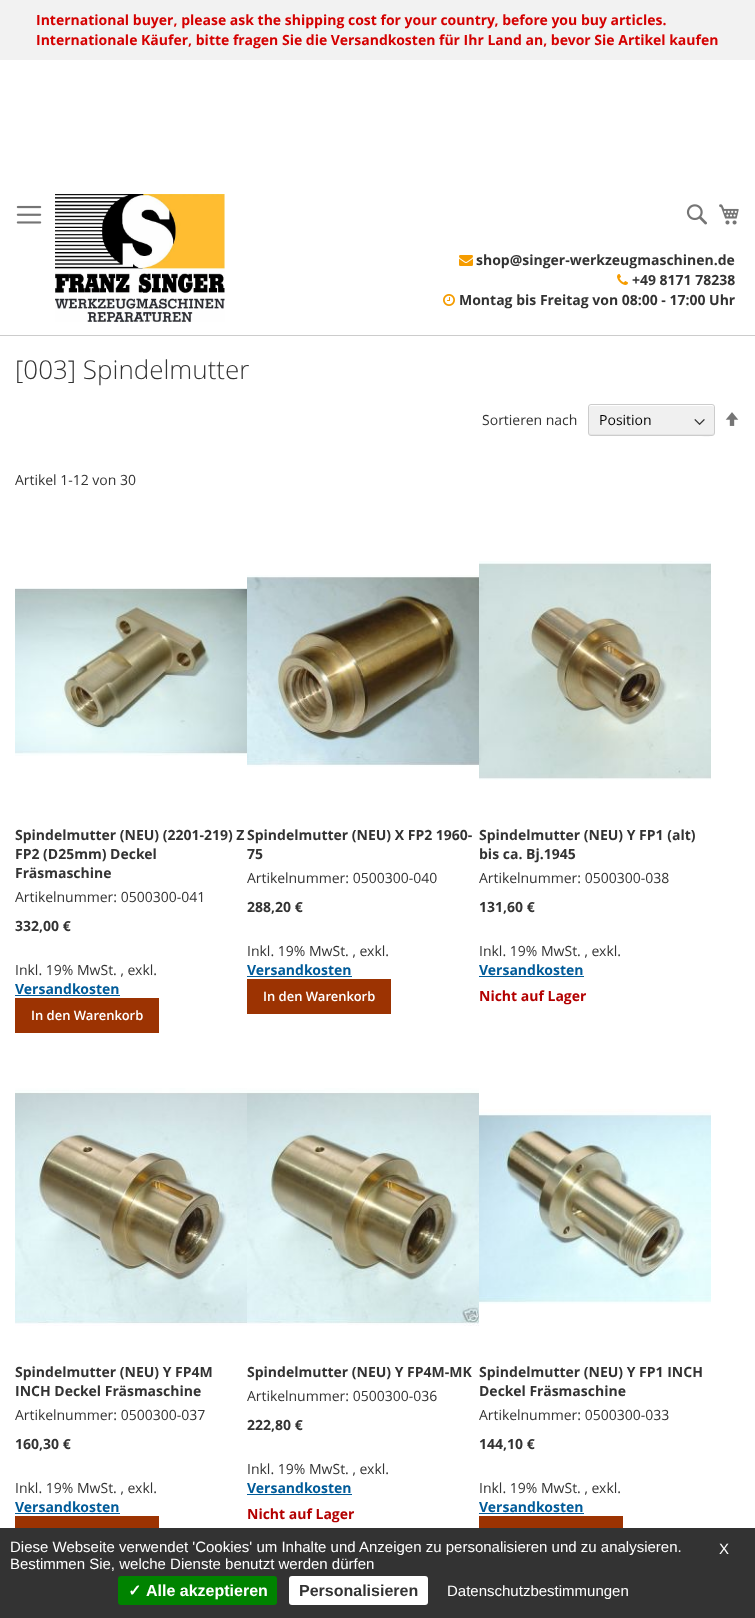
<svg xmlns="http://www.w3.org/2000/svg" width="755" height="1618">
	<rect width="100%" height="100%" fill="#FFFFFF" />
	<rect x="0" y="0" width="755" height="60" fill="#F2F2F2" />
	<g font-family="Open Sans" font-size="14" font-weight="700" fill="#D40101">
		<text x="36" y="25">International buyer, please ask the shipping cost for your country, before you buy articles.</text>
		<text x="36" y="45">Internationale Käufer, bitte fragen Sie die Versandkosten für Ihr Land an, bevor Sie Artikel kaufen</text>
	</g>
	<rect x="0" y="335" width="755" height="1" fill="#CCCCCC" />
	<image x="16" y="205" width="26" height="19" href="assets/img1.png" />
	<image x="55" y="194" width="170" height="128" href="assets/img2.png" />
	<image x="686" y="204" width="21" height="21" href="assets/img3.png" />
	<image x="719" y="204" width="20" height="21" href="assets/img4.png" />
	<image x="459" y="255" width="14" height="11" href="assets/img5.png" />
	<text x="476" y="265" font-family="Open Sans" font-size="14" font-weight="700" fill="#333333">shop@singer-werkzeugmaschinen.de</text>
	<image x="617" y="274" width="11" height="11" href="assets/img6.png" />
	<text x="632" y="285" font-family="Open Sans" font-size="14" font-weight="700" fill="#333333">+49 8171 78238</text>
	<image x="443" y="294" width="12" height="12" href="assets/img7.png" />
	<text x="459" y="305" font-family="Open Sans" font-size="14" font-weight="700" fill="#333333">Montag bis Freitag von 08:00 - 17:00 Uhr</text>
	<text x="15" y="379" font-family="Open Sans" font-size="26" font-weight="300" fill="#333333">[003] Spindelmutter</text>
	<text x="482" y="425" font-family="Open Sans" font-size="14" fill="#333333">Sortieren nach</text>
	<rect x="589" y="405" width="125" height="30" rx="2" fill="#F0F0F0" />
	<image x="694" y="419" width="11" height="6" href="assets/img8.png" />
	<path d="M589 432C589 433 589 434 590 435H692C698 435 714 440 714 432C714 433 713 434 712 434H591L589 433Z" fill="#CCCCCC" fill-opacity="0.3" />
	<path d="M591 406H712L714 407V408C714 407 714 406 713 405H611C605 405 589 400 589 408C589 407 590 406 591 406Z" fill="#FFFFFF" />
	<rect x="588.5" y="404.5" width="126" height="31" rx="2.5" fill="none" stroke="#CCCCCC" />
	<text x="599" y="425" font-family="Open Sans" font-size="14" fill="#000000">Position</text>
	<image x="725" y="412" width="14" height="14" href="assets/img9.png" />
	<text x="15" y="485" font-family="Open Sans" font-size="14" fill="#333333">Artikel 1-12 von 30</text>
	<image x="15" y="588" width="232" height="168" href="assets/img10.png" />
	<g font-family="Open Sans" font-size="14" font-weight="700" fill="#333333">
		<text x="15" y="840">Spindelmutter (NEU) (2201-219) Z</text>
		<text x="15" y="859">FP2 (D25mm) Deckel</text>
		<text x="15" y="878">Fräsmaschine</text>
	</g>
	<text x="15" y="902" font-family="Open Sans" font-size="14" fill="#333333">Artikelnummer: 0500300-041</text>
	<text x="15" y="931" font-family="Open Sans" font-size="14" font-weight="700" fill="#333333">332,00 €</text>
	<text x="15" y="975" font-family="Open Sans" font-size="14" fill="#333333">Inkl. 19% MwSt. , exkl.</text>
	<text x="15" y="994" font-family="Open Sans" font-size="14" font-weight="700" fill="#005B99">Versandkosten</text>
	<rect x="15" y="995" width="105" height="1" fill="#005B99" />
	<rect x="15" y="998" width="144" height="35" fill="#9C3302" />
	<text x="31" y="1020" font-family="Open Sans" font-size="13" font-weight="600" fill="#FFFFFF">In den Warenkorb</text>
	<image x="247" y="575" width="232" height="192" href="assets/img11.png" />
	<g font-family="Open Sans" font-size="14" font-weight="700" fill="#333333">
		<text x="247" y="840">Spindelmutter (NEU) X FP2 1960-</text>
		<text x="247" y="859">75</text>
	</g>
	<text x="247" y="883" font-family="Open Sans" font-size="14" fill="#333333">Artikelnummer: 0500300-040</text>
	<text x="247" y="912" font-family="Open Sans" font-size="14" font-weight="700" fill="#333333">288,20 €</text>
	<text x="247" y="956" font-family="Open Sans" font-size="14" fill="#333333">Inkl. 19% MwSt. , exkl.</text>
	<text x="247" y="975" font-family="Open Sans" font-size="14" font-weight="700" fill="#005B99">Versandkosten</text>
	<rect x="247" y="976" width="105" height="1" fill="#005B99" />
	<rect x="247" y="979" width="144" height="35" fill="#9C3302" />
	<text x="263" y="1001" font-family="Open Sans" font-size="13" font-weight="600" fill="#FFFFFF">In den Warenkorb</text>
	<image x="479" y="561" width="232" height="219" href="assets/img12.png" />
	<g font-family="Open Sans" font-size="14" font-weight="700" fill="#333333">
		<text x="479" y="840">Spindelmutter (NEU) Y FP1 (alt)</text>
		<text x="479" y="859">bis ca. Bj.1945</text>
	</g>
	<text x="479" y="883" font-family="Open Sans" font-size="14" fill="#333333">Artikelnummer: 0500300-038</text>
	<text x="479" y="912" font-family="Open Sans" font-size="14" font-weight="700" fill="#333333">131,60 €</text>
	<text x="479" y="956" font-family="Open Sans" font-size="14" fill="#333333">Inkl. 19% MwSt. , exkl.</text>
	<text x="479" y="975" font-family="Open Sans" font-size="14" font-weight="700" fill="#005B99">Versandkosten</text>
	<rect x="479" y="976" width="105" height="1" fill="#005B99" />
	<text x="479" y="1001" font-family="Open Sans" font-size="14" font-weight="700" fill="#B30000">Nicht auf Lager</text>
	<image x="15" y="1088" width="232" height="238" href="assets/img13.png" />
	<g font-family="Open Sans" font-size="14" font-weight="700" fill="#333333">
		<text x="15" y="1377">Spindelmutter (NEU) Y FP4M</text>
		<text x="15" y="1396">INCH Deckel Fräsmaschine</text>
	</g>
	<text x="15" y="1420" font-family="Open Sans" font-size="14" fill="#333333">Artikelnummer: 0500300-037</text>
	<text x="15" y="1449" font-family="Open Sans" font-size="14" font-weight="700" fill="#333333">160,30 €</text>
	<text x="15" y="1493" font-family="Open Sans" font-size="14" fill="#333333">Inkl. 19% MwSt. , exkl.</text>
	<text x="15" y="1512" font-family="Open Sans" font-size="14" font-weight="700" fill="#005B99">Versandkosten</text>
	<rect x="15" y="1513" width="105" height="1" fill="#005B99" />
	<rect x="15" y="1516" width="144" height="12" fill="#9C3302" />
	<image x="247" y="1088" width="232" height="238" href="assets/img14.png" />
	<text x="247" y="1377" font-family="Open Sans" font-size="14" font-weight="700" fill="#333333">Spindelmutter (NEU) Y FP4M-MK</text>
	<text x="247" y="1401" font-family="Open Sans" font-size="14" fill="#333333">Artikelnummer: 0500300-036</text>
	<text x="247" y="1430" font-family="Open Sans" font-size="14" font-weight="700" fill="#333333">222,80 €</text>
	<text x="247" y="1474" font-family="Open Sans" font-size="14" fill="#333333">Inkl. 19% MwSt. , exkl.</text>
	<text x="247" y="1493" font-family="Open Sans" font-size="14" font-weight="700" fill="#005B99">Versandkosten</text>
	<rect x="247" y="1494" width="105" height="1" fill="#005B99" />
	<text x="247" y="1519" font-family="Open Sans" font-size="14" font-weight="700" fill="#B30000">Nicht auf Lager</text>
	<image x="479" y="1109" width="232" height="195" href="assets/img15.png" />
	<g font-family="Open Sans" font-size="14" font-weight="700" fill="#333333">
		<text x="479" y="1377">Spindelmutter (NEU) Y FP1 INCH</text>
		<text x="479" y="1396">Deckel Fräsmaschine</text>
	</g>
	<text x="479" y="1420" font-family="Open Sans" font-size="14" fill="#333333">Artikelnummer: 0500300-033</text>
	<text x="479" y="1449" font-family="Open Sans" font-size="14" font-weight="700" fill="#333333">144,10 €</text>
	<text x="479" y="1493" font-family="Open Sans" font-size="14" fill="#333333">Inkl. 19% MwSt. , exkl.</text>
	<text x="479" y="1512" font-family="Open Sans" font-size="14" font-weight="700" fill="#005B99">Versandkosten</text>
	<rect x="479" y="1513" width="105" height="1" fill="#005B99" />
	<rect x="479" y="1516" width="144" height="12" fill="#9C3302" />
	<rect x="0" y="1528" width="755" height="90" fill="#333333" />
	<g font-family="Liberation Sans" font-size="15" fill="#FFFFFF">
		<text x="10" y="1552">Diese Webseite verwendet 'Cookies' um Inhalte und Anzeigen zu personalisieren und zu analysieren.</text>
		<text x="10" y="1569">Bestimmen Sie, welche Dienste benutzt werden dürfen</text>
		<text x="719" y="1554">X</text>
	</g>
	<rect x="118" y="1576" width="159" height="29" rx="3" fill="#008300" />
	<text x="128" y="1596" font-family="DejaVu Sans" font-size="16" font-weight="700" fill="#FFFFFF">✓</text>
	<text x="146" y="1596" font-family="Liberation Sans" font-size="16" font-weight="700" fill="#FFFFFF">Alle akzeptieren</text>
	<rect x="289" y="1576" width="139" height="29" rx="3" fill="#FFFFFF" />
	<text x="299" y="1596" font-family="Liberation Sans" font-size="16" font-weight="700" fill="#333333">Personalisieren</text>
	<text x="447" y="1596" font-family="Liberation Sans" font-size="15" fill="#FFFFFF">Datenschutzbestimmungen</text>
</svg>
